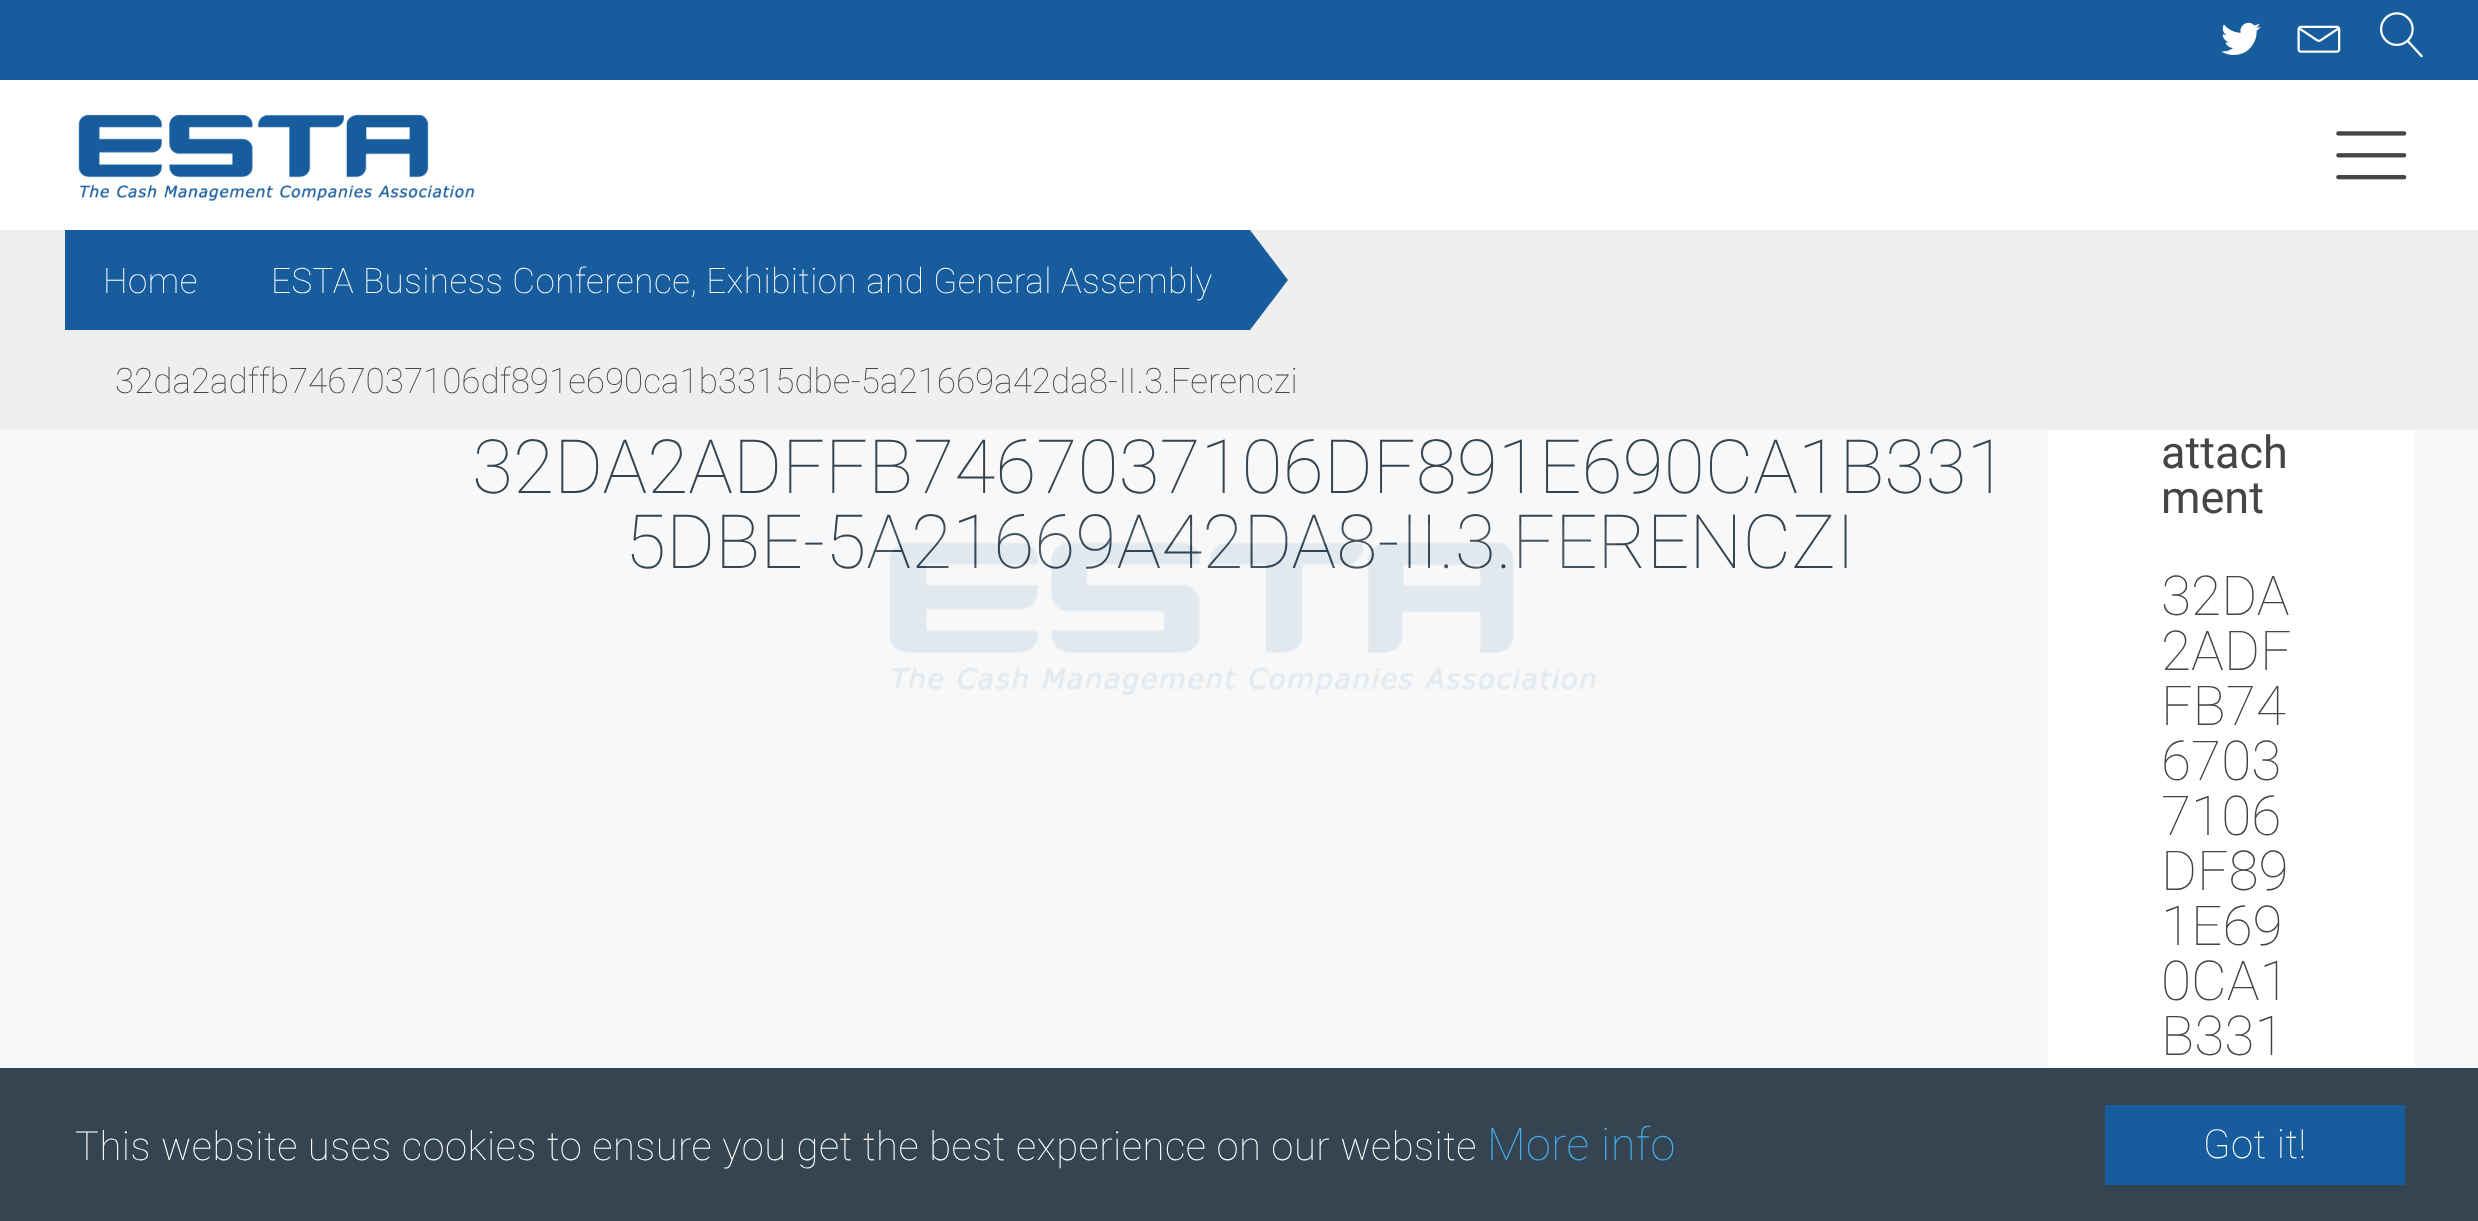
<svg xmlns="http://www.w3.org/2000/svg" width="2478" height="1221">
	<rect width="100%" height="100%" fill="#F8F8F8" />
	<rect x="0" y="0" width="2478" height="80" fill="#175D9D" />
	<image x="2221" y="22" width="40" height="33" href="assets/img1.png" />
	<image x="2297" y="25" width="44" height="28" href="assets/img2.png" />
	<image x="2380" y="12" width="43" height="46" href="assets/img3.png" />
	<rect x="0" y="80" width="2478" height="150" fill="#FFFFFF" />
	<image x="78" y="114" width="397" height="87" href="assets/img4.png" />
	<image x="2336" y="131" width="71" height="49" href="assets/img5.png" />
	<rect x="0" y="230" width="2478" height="200" fill="#EFEFEF" />
	<rect x="65" y="230" width="1185" height="100" fill="#175C9D" />
	<g font-family="Roboto" font-size="35" font-weight="100" letter-spacing="0.5" fill="#FFFFFF">
		<text x="103" y="293">Home</text>
		<text x="271" y="293">ESTA Business Conference, Exhibition and General Assembly</text>
	</g>
	<path d="M1250 330V230L1288 280Z" fill="#175C9D" />
	<text x="115" y="393" font-family="Roboto" font-size="35" font-weight="100" fill="#454545">32da2adffb7467037106df891e690ca1b3315dbe-5a21669a42da8-II.3.Ferenczi</text>
	<g font-family="Roboto" font-size="75" font-weight="100" fill="#344451">
		<text x="472" y="493">32DA2ADFFB7467037106DF891E690CA1B331</text>
		<text x="625" y="568">5DBE-5A21669A42DA8-II.3.FERENCZI</text>
	</g>
	<rect x="2048" y="430" width="367" height="638" fill="#FFFFFF" />
	<g font-family="Roboto" font-size="45" fill="#454545">
		<text x="2161" y="468">attach</text>
		<text x="2161" y="513">ment</text>
	</g>
	<g font-family="Roboto" font-size="55" font-weight="100" fill="#454545">
		<text x="2161" y="615">32DA</text>
		<text x="2161" y="670">2ADF</text>
		<text x="2161" y="725">FB74</text>
		<text x="2161" y="780">6703</text>
		<text x="2161" y="835">7106</text>
		<text x="2161" y="890">DF89</text>
		<text x="2161" y="945">1E69</text>
		<text x="2161" y="1000">0CA1</text>
		<text x="2161" y="1055">B331</text>
	</g>
	<image x="867" y="525" width="748" height="170" href="assets/img6.png" />
	<rect x="0" y="1068" width="2478" height="153" fill="#344451" />
	<text x="75" y="1160" font-family="Roboto" font-size="40" font-weight="100" letter-spacing="0.5" fill="#FFFFFF">This website uses cookies to ensure you get the best experience on our website</text>
	<text x="1487" y="1160" font-family="Roboto" font-size="45" font-weight="100" letter-spacing="0.5" fill="#44B0F1">More info</text>
	<rect x="2105" y="1105" width="300" height="80" fill="#175D9D" />
	<text x="2203" y="1158" font-family="Roboto" font-size="40" font-weight="100" letter-spacing="0.5" fill="#FFFFFF">Got it!</text>
</svg>
